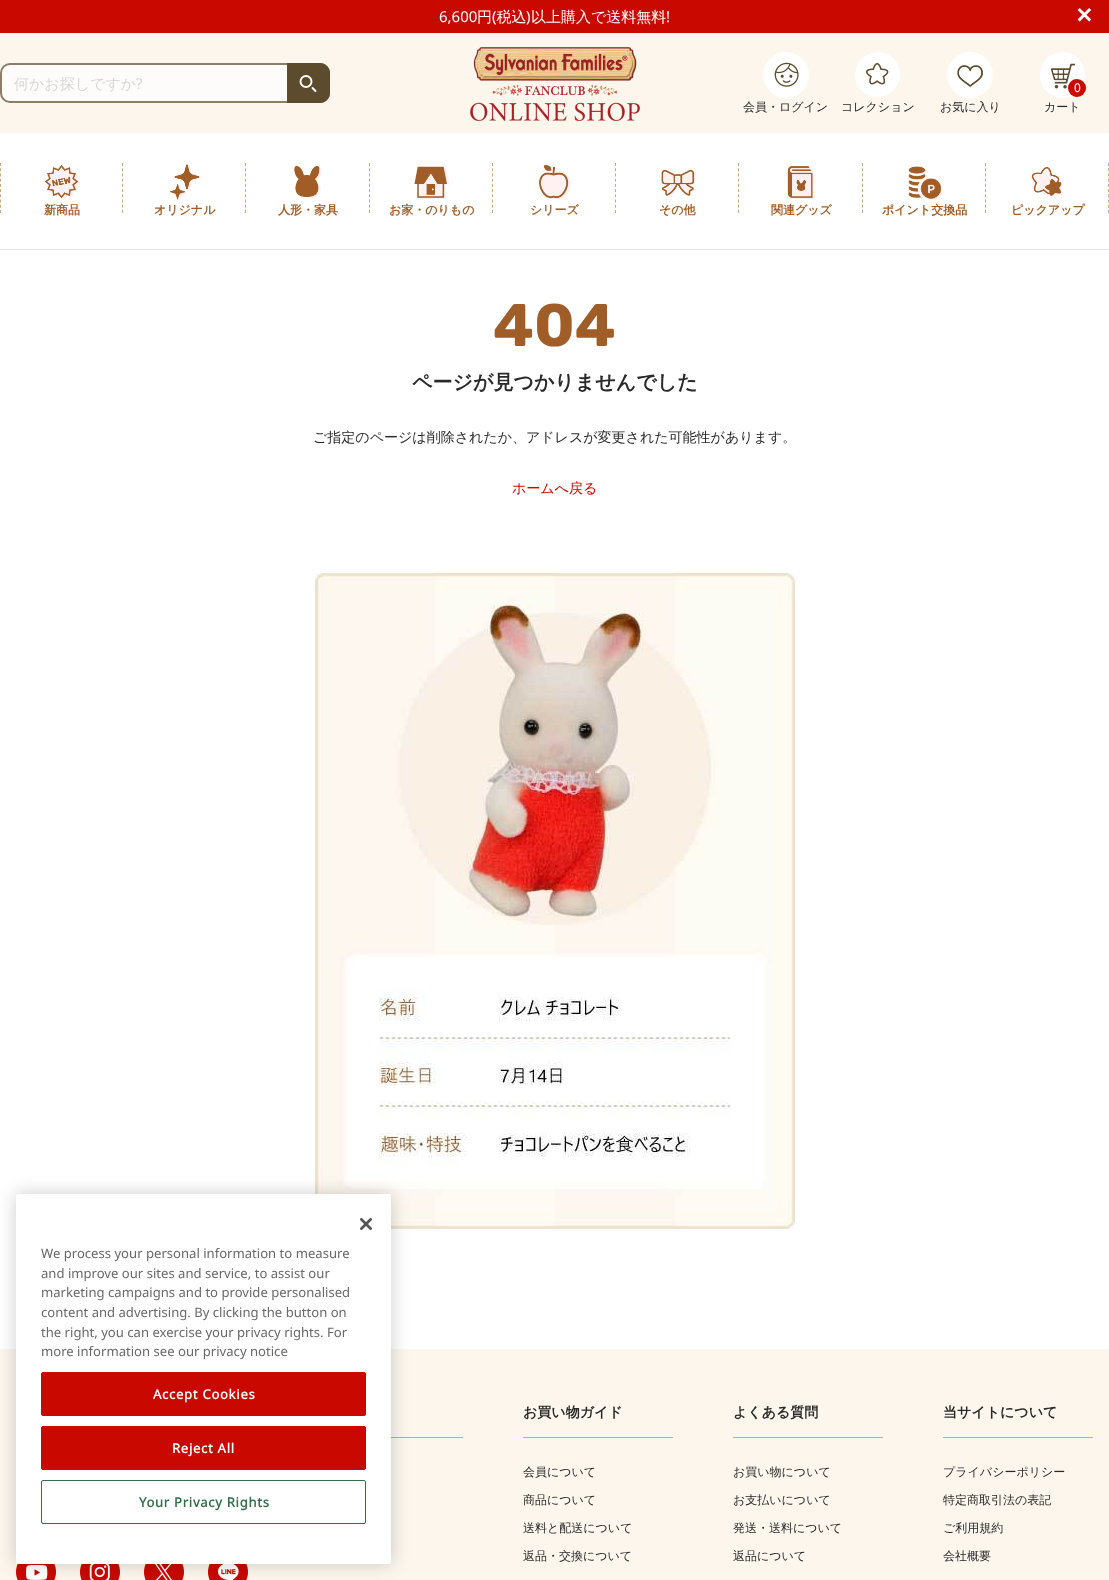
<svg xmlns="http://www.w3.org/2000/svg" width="1109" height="1580">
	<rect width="100%" height="100%" fill="#FFFFFF" />
	<rect x="0" y="33" width="1109" height="100" fill="#FDF6ED" />
	<rect x="0" y="0" width="1109" height="33" fill="#C90900" />
	<text x="439" y="22" font-family="Noto Sans" font-size="15" fill="#FFFFFF">6,600</text>
	<text x="477" y="22" font-family="WenQuanYi Zen Hei" font-size="15" font-weight="500" fill="#FFFFFF">円 税込 以上購入で送料無料</text>
	<g font-family="Noto Sans" font-size="15" fill="#FFFFFF">
		<text x="492" y="22">(</text>
		<text x="526" y="22">)</text>
		<text x="666" y="22">!</text>
	</g>
	<text x="1076" y="25" font-family="Noto Sans" font-size="28" font-weight="700" fill="#FFFFFF">×</text>
	<rect x="1" y="64" width="328" height="38" rx="9" fill="#FEFCFA" stroke="#8C7E66" stroke-width="2" />
	<text x="14" y="89" font-family="WenQuanYi Zen Hei" font-size="15" font-weight="500" fill="#D9D7D5">何かお探しですか</text>
	<text x="136" y="89" font-family="Noto Sans" font-size="15" fill="#D9D7D5">?</text>
	<path d="M287 63H320C325.5 63 330 67.5 330 73V93C330 98.5 325.5 103 320 103H287Z" fill="#5C4B2C" />
	<path d="M312.5 88L315.5 91" fill="none" stroke="#FCFCFC" stroke-width="2" stroke-linecap="round" />
	<circle cx="306" cy="81.5" r="5.5" fill="none" stroke="#FCFCFC" stroke-width="2" />
	<image x="470" y="47" width="170" height="74" href="assets/img1.png" />
	<circle cx="786" cy="75" r="23" fill="#FFFFFF" />
	<image x="774" y="62" width="25" height="25" href="assets/img2.png" />
	<text x="743" y="111" font-family="WenQuanYi Zen Hei" font-size="12" font-weight="500" fill="#292929">会員・ログイン</text>
	<image x="855" y="52" width="45" height="45" href="assets/img3.png" />
	<text x="841" y="111" font-family="WenQuanYi Zen Hei" font-size="12" font-weight="500" fill="#292929">コレクション</text>
	<circle cx="970" cy="75" r="23" fill="#FFFFFF" />
	<image x="957" y="65" width="26" height="22" href="assets/img4.png" />
	<text x="940" y="111" font-family="WenQuanYi Zen Hei" font-size="12" font-weight="500" fill="#292929">お気に入り</text>
	<rect x="1040" y="52" width="45" height="46" rx="22.5" fill="#FFFFFF" />
	<image x="1050" y="63" width="25" height="26" href="assets/img5.png" />
	<circle cx="1077" cy="88" r="9" fill="#C90900" />
	<text x="1074" y="92" font-family="Noto Sans" font-size="12" fill="#FFFFFF">0</text>
	<text x="1044" y="111" font-family="WenQuanYi Zen Hei" font-size="12" font-weight="500" fill="#292929">カート</text>
	<path d="M.5 163V213" fill="none" stroke="#C9AB80" stroke-dasharray="3 2.22" />
	<image x="44" y="164" width="36" height="36" href="assets/img6.png" />
	<text x="44" y="214" font-family="WenQuanYi Zen Hei" font-size="12" font-weight="700" fill="#A15D27">新商品</text>
	<path d="M122.5 163V213" fill="none" stroke="#C9AB80" stroke-dasharray="3 2.22" />
	<image x="169" y="164" width="33" height="37" href="assets/img7.png" />
	<text x="154" y="214" font-family="WenQuanYi Zen Hei" font-size="12" font-weight="700" fill="#A15D27">オリジナル</text>
	<path d="M245.5 163V213" fill="none" stroke="#C9AB80" stroke-dasharray="3 2.22" />
	<image x="294" y="166" width="28" height="32" href="assets/img8.png" />
	<text x="278" y="214" font-family="WenQuanYi Zen Hei" font-size="12" font-weight="700" fill="#A15D27">人形・家具</text>
	<path d="M369.5 163V213" fill="none" stroke="#C9AB80" stroke-dasharray="3 2.22" />
	<image x="414" y="166" width="35" height="33" href="assets/img9.png" />
	<text x="389" y="214" font-family="WenQuanYi Zen Hei" font-size="12" font-weight="700" fill="#A15D27">お家・のりもの</text>
	<path d="M492.5 163V213" fill="none" stroke="#C9AB80" stroke-dasharray="3 2.22" />
	<image x="539" y="165" width="32" height="35" href="assets/img10.png" />
	<text x="530" y="214" font-family="WenQuanYi Zen Hei" font-size="12" font-weight="700" fill="#A15D27">シリーズ</text>
	<path d="M615.5 163V213" fill="none" stroke="#C9AB80" stroke-dasharray="3 2.22" />
	<image x="661" y="169" width="34" height="28" href="assets/img11.png" />
	<text x="659" y="214" font-family="WenQuanYi Zen Hei" font-size="12" font-weight="700" fill="#A15D27">その他</text>
	<path d="M738.5 163V213" fill="none" stroke="#C9AB80" stroke-dasharray="3 2.22" />
	<image x="787" y="166" width="28" height="33" href="assets/img12.png" />
	<text x="771" y="214" font-family="WenQuanYi Zen Hei" font-size="12" font-weight="700" fill="#A15D27">関連グッズ</text>
	<path d="M862.5 163V213" fill="none" stroke="#C9AB80" stroke-dasharray="3 2.22" />
	<image x="908" y="166" width="35" height="34" href="assets/img13.png" />
	<text x="882" y="214" font-family="WenQuanYi Zen Hei" font-size="12" font-weight="700" fill="#A15D27">ポイント交換品</text>
	<path d="M985.5 163V213" fill="none" stroke="#C9AB80" stroke-dasharray="3 2.22" />
	<image x="1031" y="166" width="32" height="31" href="assets/img14.png" />
	<text x="1011" y="214" font-family="WenQuanYi Zen Hei" font-size="12" font-weight="700" fill="#A15D27">ピックアップ</text>
	<path d="M1108.5 163V213" fill="none" stroke="#C9AB80" stroke-dasharray="3 2.22" />
	<rect x="0" y="249" width="1109" height="1" fill="#E3E3E3" />
	<text x="493" y="346" font-family="Rubik" font-size="60" font-weight="300" fill="#A15D27">404</text>
	<text x="412" y="389" font-family="WenQuanYi Zen Hei" font-size="20" font-weight="700" fill="#292929">ページが見つかりませんでした</text>
	<text x="313" y="442" font-family="WenQuanYi Zen Hei" font-size="14" font-weight="500" fill="#292929">ご指定のページは削除されたか、アドレスが変更された可能性があります。</text>
	<text x="512" y="493" font-family="WenQuanYi Zen Hei" font-size="14" font-weight="500" fill="#C90900">ホームへ戻る</text>
	<image x="315" y="573" width="480" height="656" href="assets/img15.png" />
	<rect x="0" y="1349" width="1109" height="231" fill="#FDF6ED" />
	<rect x="391" y="1437" width="72" height="1" fill="#C9AB80" />
	<rect x="523" y="1437" width="150" height="1" fill="#C9AB80" />
	<text x="523" y="1417" font-family="WenQuanYi Zen Hei" font-size="14" font-weight="700" fill="#292929">お買い物ガイド</text>
	<g font-family="WenQuanYi Zen Hei" font-size="12" font-weight="500" fill="#292929">
		<text x="523" y="1476">会員について</text>
		<text x="523" y="1504">商品について</text>
		<text x="523" y="1532">送料と配送について</text>
		<text x="523" y="1560">返品・交換について</text>
	</g>
	<rect x="733" y="1437" width="150" height="1" fill="#C9AB80" />
	<text x="733" y="1417" font-family="WenQuanYi Zen Hei" font-size="14" font-weight="700" fill="#292929">よくある質問</text>
	<g font-family="WenQuanYi Zen Hei" font-size="12" font-weight="500" fill="#292929">
		<text x="733" y="1476">お買い物について</text>
		<text x="733" y="1504">お支払いについて</text>
		<text x="733" y="1532">発送・送料について</text>
		<text x="733" y="1560">返品について</text>
	</g>
	<rect x="943" y="1437" width="150" height="1" fill="#C9AB80" />
	<text x="943" y="1417" font-family="WenQuanYi Zen Hei" font-size="14" font-weight="700" fill="#292929">当サイトについて</text>
	<g font-family="WenQuanYi Zen Hei" font-size="12" font-weight="500" fill="#292929">
		<text x="943" y="1476">プライバシーポリシー</text>
		<text x="943" y="1504">特定商取引法の表記</text>
		<text x="943" y="1532">ご利用規約</text>
		<text x="943" y="1560">会社概要</text>
	</g>
	<image x="16" y="1563" width="40" height="17" href="assets/img16.png" />
	<image x="80" y="1564" width="40" height="16" href="assets/img17.png" />
	<image x="144" y="1564" width="40" height="16" href="assets/img18.png" />
	<image x="208" y="1564" width="40" height="16" href="assets/img19.png" />
	<rect x="16" y="1194" width="375" height="370" rx="2.5" fill="#000000" fill-opacity="0.2" filter="blur(9px)" />
	<rect x="16" y="1194" width="375" height="370" rx="2.5" fill="#FFFFFF" />
	<image x="360" y="1218" width="12" height="12" href="assets/img20.png" />
	<g font-family="Noto Sans" font-size="13.1" fill="#696969">
		<text x="41" y="1258">We process your personal information to measure</text>
		<text x="41" y="1278">and improve our sites and service, to assist our</text>
		<text x="41" y="1297">marketing campaigns and to provide personalised</text>
		<text x="41" y="1317">content and advertising. By clicking the button on</text>
		<text x="41" y="1337">the right, you can exercise your privacy rights. For</text>
		<text x="41" y="1356">more information see our privacy notice</text>
	</g>
	<rect x="41.5" y="1372.5" width="324" height="43" rx="1.5" fill="#C90900" stroke="#C90900" />
	<text x="153" y="1399" font-family="Noto Sans" font-size="13.1" font-weight="700" letter-spacing="0.7" fill="#FFFFFF">Accept Cookies</text>
	<rect x="41.5" y="1426.5" width="324" height="43" rx="1.5" fill="#C90900" stroke="#C90900" />
	<text x="172" y="1453" font-family="Noto Sans" font-size="13.1" font-weight="700" letter-spacing="0.7" fill="#FFFFFF">Reject All</text>
	<rect x="41.5" y="1480.5" width="324" height="43" rx="1.5" fill="none" stroke="#346E4A" />
	<text x="139" y="1507" font-family="Noto Sans" font-size="13.1" font-weight="700" letter-spacing="0.7" fill="#346E4A">Your Privacy Rights</text>
</svg>
